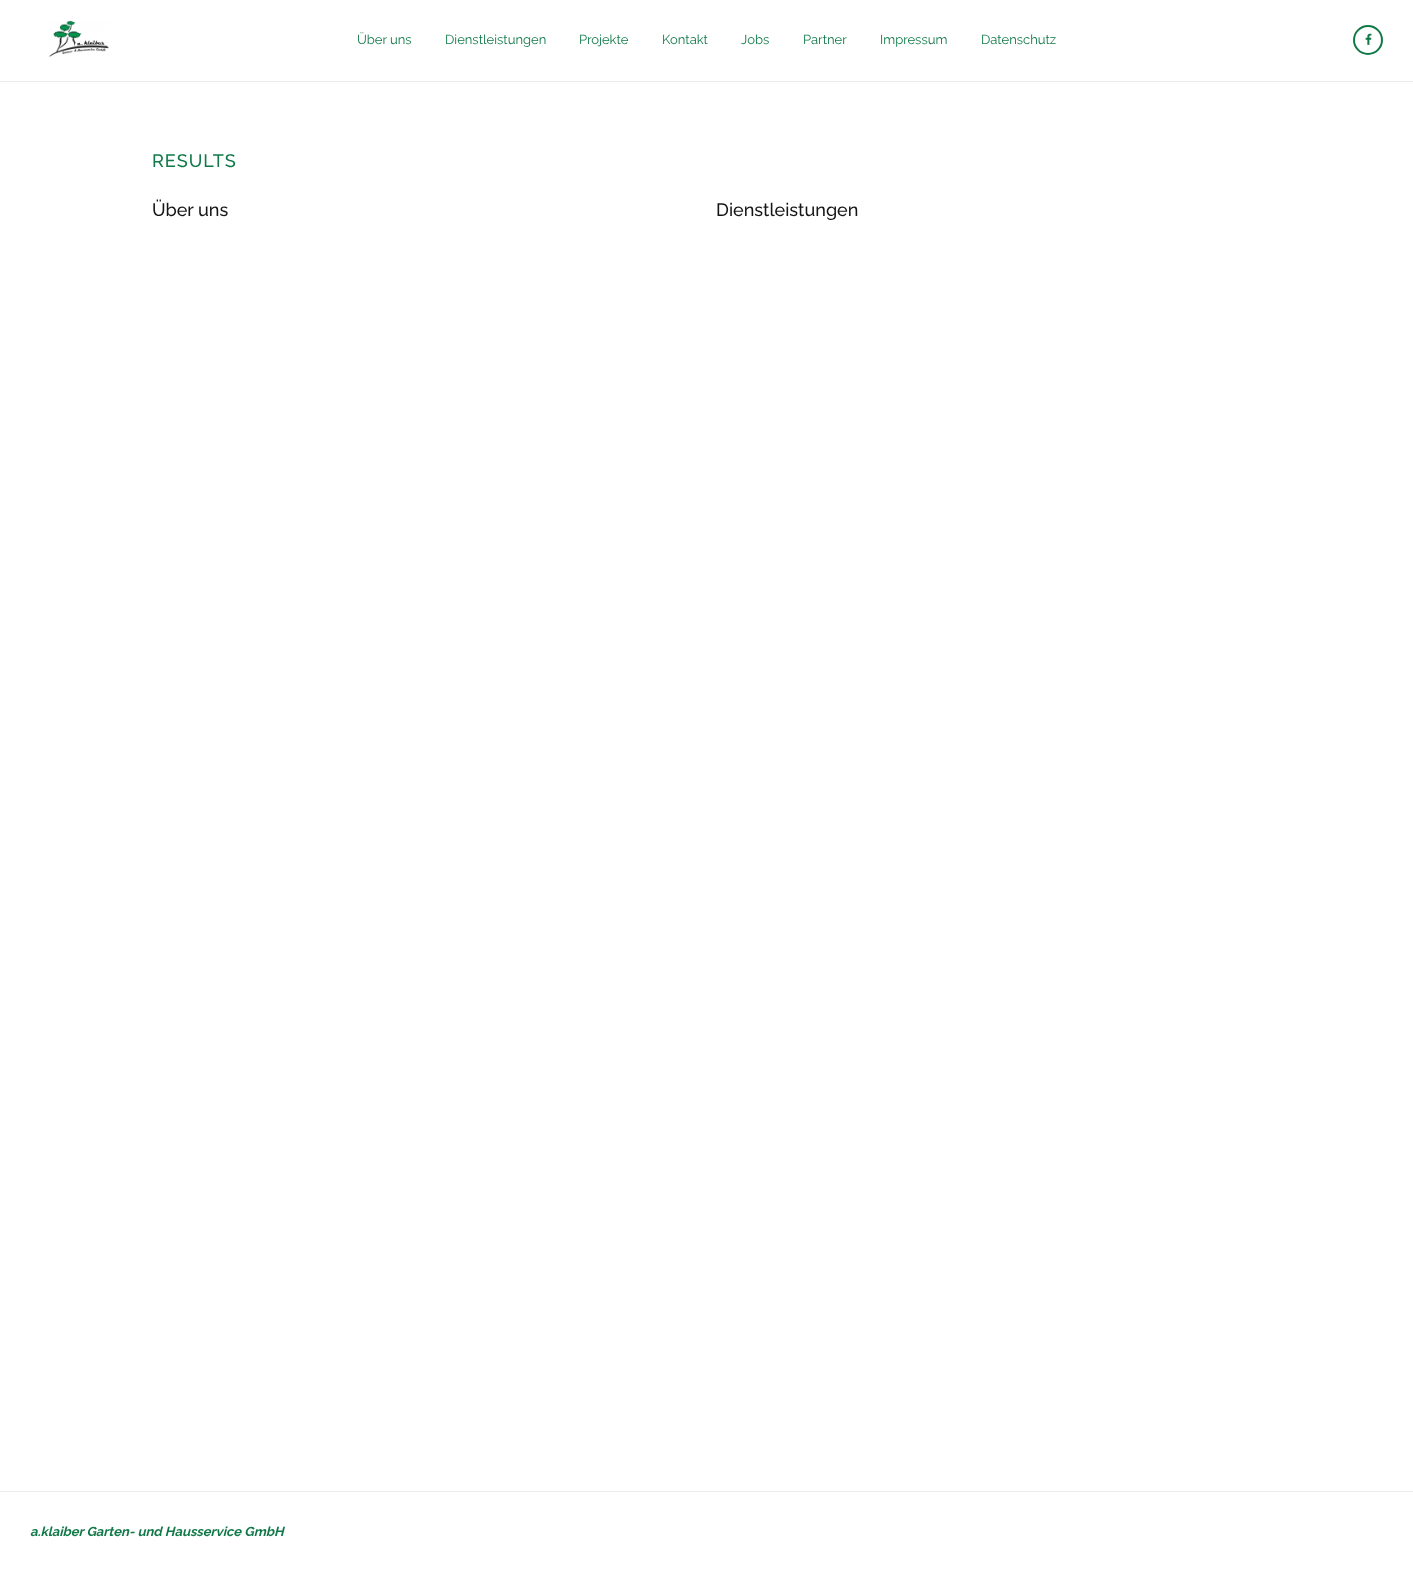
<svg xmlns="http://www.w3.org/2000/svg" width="1413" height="1570">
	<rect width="100%" height="100%" fill="#FFFFFF" />
	<rect x="0" y="81" width="1413" height="1" fill="#EBEBEB" />
	<image x="49" y="20" width="60" height="37" href="assets/img1.png" />
	<g font-family="Raleway" font-size="13" fill="#117948">
		<text x="357" y="44">Über uns</text>
		<text x="445" y="44">Dienstleistungen</text>
		<text x="579" y="44">Projekte</text>
		<text x="662" y="44">Kontakt</text>
		<text x="741" y="44">Jobs</text>
		<text x="803" y="44">Partner</text>
		<text x="880" y="44">Impressum</text>
		<text x="981" y="44">Datenschutz</text>
	</g>
	<circle cx="1368" cy="40" r="14" fill="none" stroke="#117948" stroke-width="2" />
	<image x="1365" y="33" width="7" height="12" href="assets/img2.png" />
	<text x="152" y="167" font-family="Raleway" font-size="18" font-weight="500" letter-spacing="1" fill="#117948">RESULTS</text>
	<g font-family="Raleway" font-size="18" font-weight="500" fill="#151515">
		<text x="152" y="216">Über uns</text>
		<text x="716" y="216">Dienstleistungen</text>
	</g>
	<rect x="0" y="1491" width="1413" height="1" fill="#EBEBEB" />
	<text x="30" y="1536" font-family="Raleway" font-size="13" font-weight="700" font-style="italic" fill="#117948">a.klaiber Garten- und Hausservice GmbH</text>
</svg>
